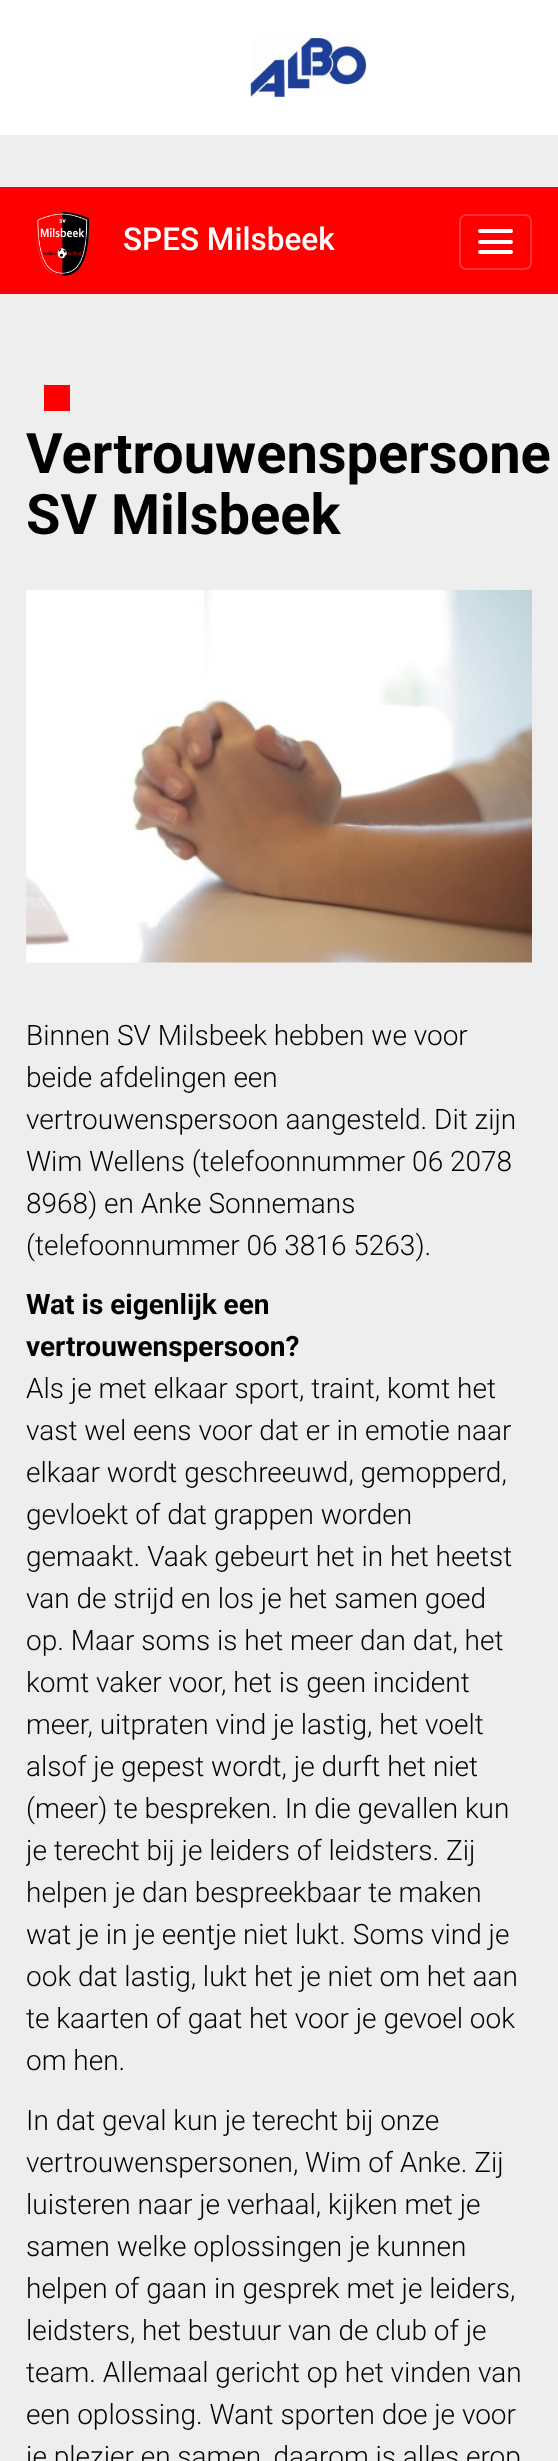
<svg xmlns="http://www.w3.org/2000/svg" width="558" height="2461">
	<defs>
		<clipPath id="clip1"><rect x="26" y="590" width="506" height="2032" /></clipPath>
	</defs>
	<rect width="100%" height="100%" fill="#EEEEEE" />
	<rect x="0" y="0" width="558" height="135" fill="#FFFFFF" />
	<image x="250" y="38" width="117" height="59" href="assets/img1.png" />
	<rect x="0" y="187" width="558" height="107" fill="#FF0000" />
	<image x="35" y="211" width="55" height="65" href="assets/img2.png" />
	<text x="123" y="250" font-family="Roboto" font-size="31.5" font-weight="500" fill="#FFFFFF">SPES Milsbeek</text>
	<rect x="460" y="215" width="71" height="54" rx="6" fill="none" stroke="#FF3333" stroke-width="2" />
	<rect x="478" y="229" width="35" height="4" rx="2" fill="#FFFFFF" />
	<rect x="478" y="240" width="35" height="4" rx="2" fill="#FFFFFF" />
	<rect x="478" y="250" width="35" height="4" rx="2" fill="#FFFFFF" />
	<rect x="44" y="385" width="26" height="26" fill="#FF0000" />
	<g font-family="Roboto" font-size="56" font-weight="700" fill="#000000">
		<text x="26" y="473">Vertrouwenspersone</text>
		<text x="26" y="534">SV Milsbeek</text>
	</g>
	<image x="26" y="590" width="506" height="373" href="assets/img3.png" />
	<g font-family="Roboto" font-size="28" font-weight="300" fill="#000000">
		<text x="26" y="1045">Binnen SV Milsbeek hebben we voor</text>
		<text x="26" y="1087">beide afdelingen een</text>
		<text x="26" y="1129">vertrouwenspersoon aangesteld. Dit zijn</text>
		<text x="26" y="1171">Wim Wellens (telefoonnummer 06 2078</text>
		<text x="26" y="1213">8968) en Anke Sonnemans</text>
		<text x="26" y="1255">(telefoonnummer 06 3816 5263).</text>
	</g>
	<g font-family="Roboto" font-size="28" font-weight="700" fill="#000000">
		<text x="26" y="1314">Wat is eigenlijk een</text>
		<text x="26" y="1356">vertrouwenspersoon?</text>
	</g>
	<g font-family="Roboto" font-size="28" font-weight="300" fill="#000000">
		<text x="26" y="1398">Als je met elkaar sport, traint, komt het</text>
		<text x="26" y="1440">vast wel eens voor dat er in emotie naar</text>
		<text x="26" y="1482">elkaar wordt geschreeuwd, gemopperd,</text>
		<text x="26" y="1524">gevloekt of dat grappen worden</text>
		<text x="26" y="1566">gemaakt. Vaak gebeurt het in het heetst</text>
		<text x="26" y="1608">van de strijd en los je het samen goed</text>
		<text x="26" y="1650">op. Maar soms is het meer dan dat, het</text>
		<text x="26" y="1692">komt vaker voor, het is geen incident</text>
		<text x="26" y="1734">meer, uitpraten vind je lastig, het voelt</text>
		<text x="26" y="1776">alsof je gepest wordt, je durft het niet</text>
		<text x="26" y="1818">(meer) te bespreken. In die gevallen kun</text>
	</g>
	<g clip-path="url(#clip1)">
		<text x="26" y="1860" font-family="Roboto" font-size="28" font-weight="300" fill="#000000">je terecht bij je leiders of leidsters. Zij</text>
	</g>
	<g font-family="Roboto" font-size="28" font-weight="300" fill="#000000">
		<text x="26" y="1902">helpen je dan bespreekbaar te maken</text>
		<text x="26" y="1944">wat je in je eentje niet lukt. Soms vind je</text>
		<text x="26" y="1986">ook dat lastig, lukt het je niet om het aan</text>
		<text x="26" y="2028">te kaarten of gaat het voor je gevoel ook</text>
		<text x="26" y="2070">om hen.</text>
		<text x="26" y="2130">In dat geval kun je terecht bij onze</text>
		<text x="26" y="2172">vertrouwenspersonen, Wim of Anke. Zij</text>
		<text x="26" y="2214">luisteren naar je verhaal, kijken met je</text>
		<text x="26" y="2256">samen welke oplossingen je kunnen</text>
		<text x="26" y="2298">helpen of gaan in gesprek met je leiders,</text>
		<text x="26" y="2340">leidsters, het bestuur van de club of je</text>
		<text x="26" y="2382">team. Allemaal gericht op het vinden van</text>
		<text x="26" y="2424">een oplossing. Want sporten doe je voor</text>
		<text x="26" y="2466">je plezier en samen, daarom is alles erop</text>
	</g>
</svg>
